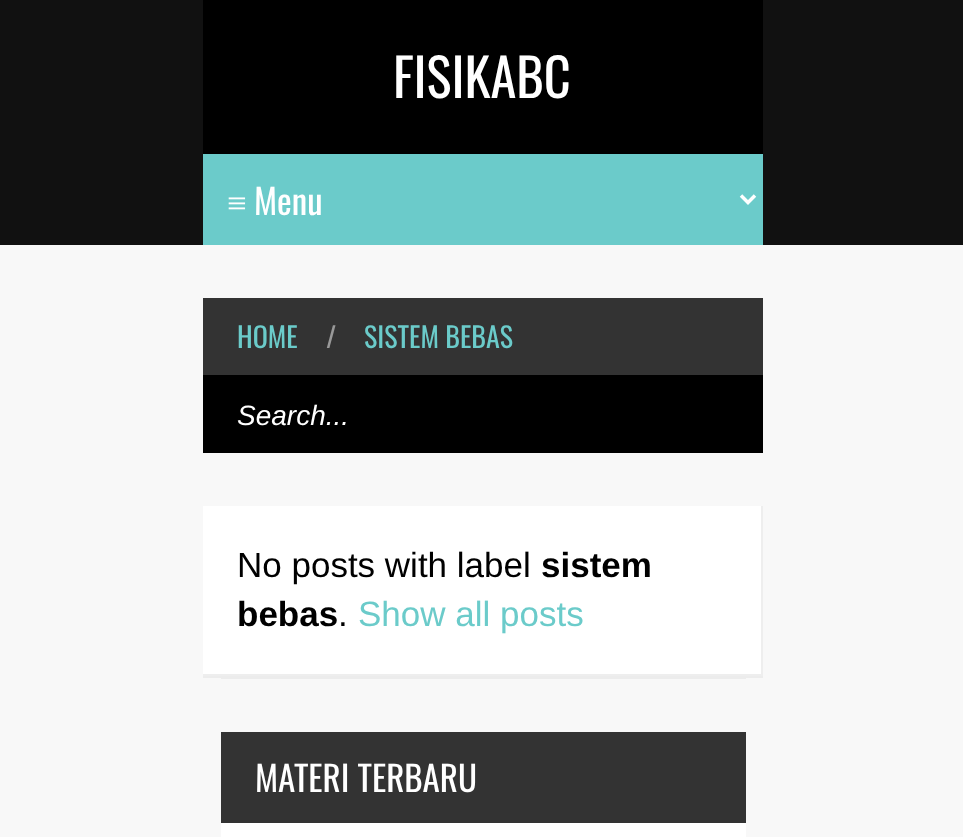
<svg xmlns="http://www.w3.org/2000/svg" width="963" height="837">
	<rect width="100%" height="100%" fill="#F8F8F8" />
	<rect x="0" y="0" width="963" height="245" fill="#111111" />
	<rect x="203" y="0" width="560" height="154" fill="#000000" />
	<text x="393" y="98" font-family="Oswald" font-size="52.5" fill="#FFFFFF">FISIKABC</text>
	<rect x="203" y="154" width="560" height="91" fill="#6BCBCA" />
	<path d="M741 195.5L748 202.5L755 195.5" fill="none" stroke="#FFFFFF" stroke-width="3.5" />
	<text x="227" y="215" font-family="Liberation Serif" font-size="35" fill="#FFFFFF">≡</text>
	<text x="254" y="215" font-family="Oswald" font-size="35" fill="#FFFFFF">Menu</text>
	<rect x="203" y="676" width="560" height="2" fill="#ECECEC" />
	<rect x="203" y="298" width="560" height="77" fill="#333333" />
	<text x="237" y="348" font-family="Oswald" font-size="28" fill="#6BCBCA">HOME</text>
	<text x="326" y="348" font-family="Oswald" font-size="28" fill="#999999">/</text>
	<text x="364" y="348" font-family="Oswald" font-size="28" fill="#6BCBCA">SISTEM BEBAS</text>
	<rect x="203" y="375" width="560" height="78" fill="#000000" />
	<text x="237" y="425" font-family="Liberation Sans" font-size="28" font-style="italic" fill="#FFFFFF">Search...</text>
	<rect x="203" y="506" width="558" height="168" fill="#FFFFFF" />
	<rect x="761" y="506" width="2" height="170" fill="#EEEEEE" />
	<rect x="203" y="674" width="560" height="2" fill="#EEEEEE" />
	<text x="237" y="577" font-family="Liberation Sans" font-size="35" fill="#000000">No posts with label</text>
	<g font-family="Liberation Sans" font-size="35" font-weight="700" fill="#000000">
		<text x="541" y="577">sistem</text>
		<text x="237" y="626">bebas</text>
	</g>
	<text x="338" y="626" font-family="Liberation Sans" font-size="35" fill="#000000">.</text>
	<text x="358" y="626" font-family="Liberation Sans" font-size="35" fill="#6BCBCA">Show all posts</text>
	<rect x="221" y="678" width="525" height="1" fill="#ECECEC" />
	<rect x="221" y="732" width="525" height="91" fill="#333333" />
	<text x="255" y="792" font-family="Oswald" font-size="35" fill="#FFFFFF">MATERI TERBARU</text>
	<rect x="221" y="823" width="525" height="14" fill="#FFFFFF" />
</svg>
